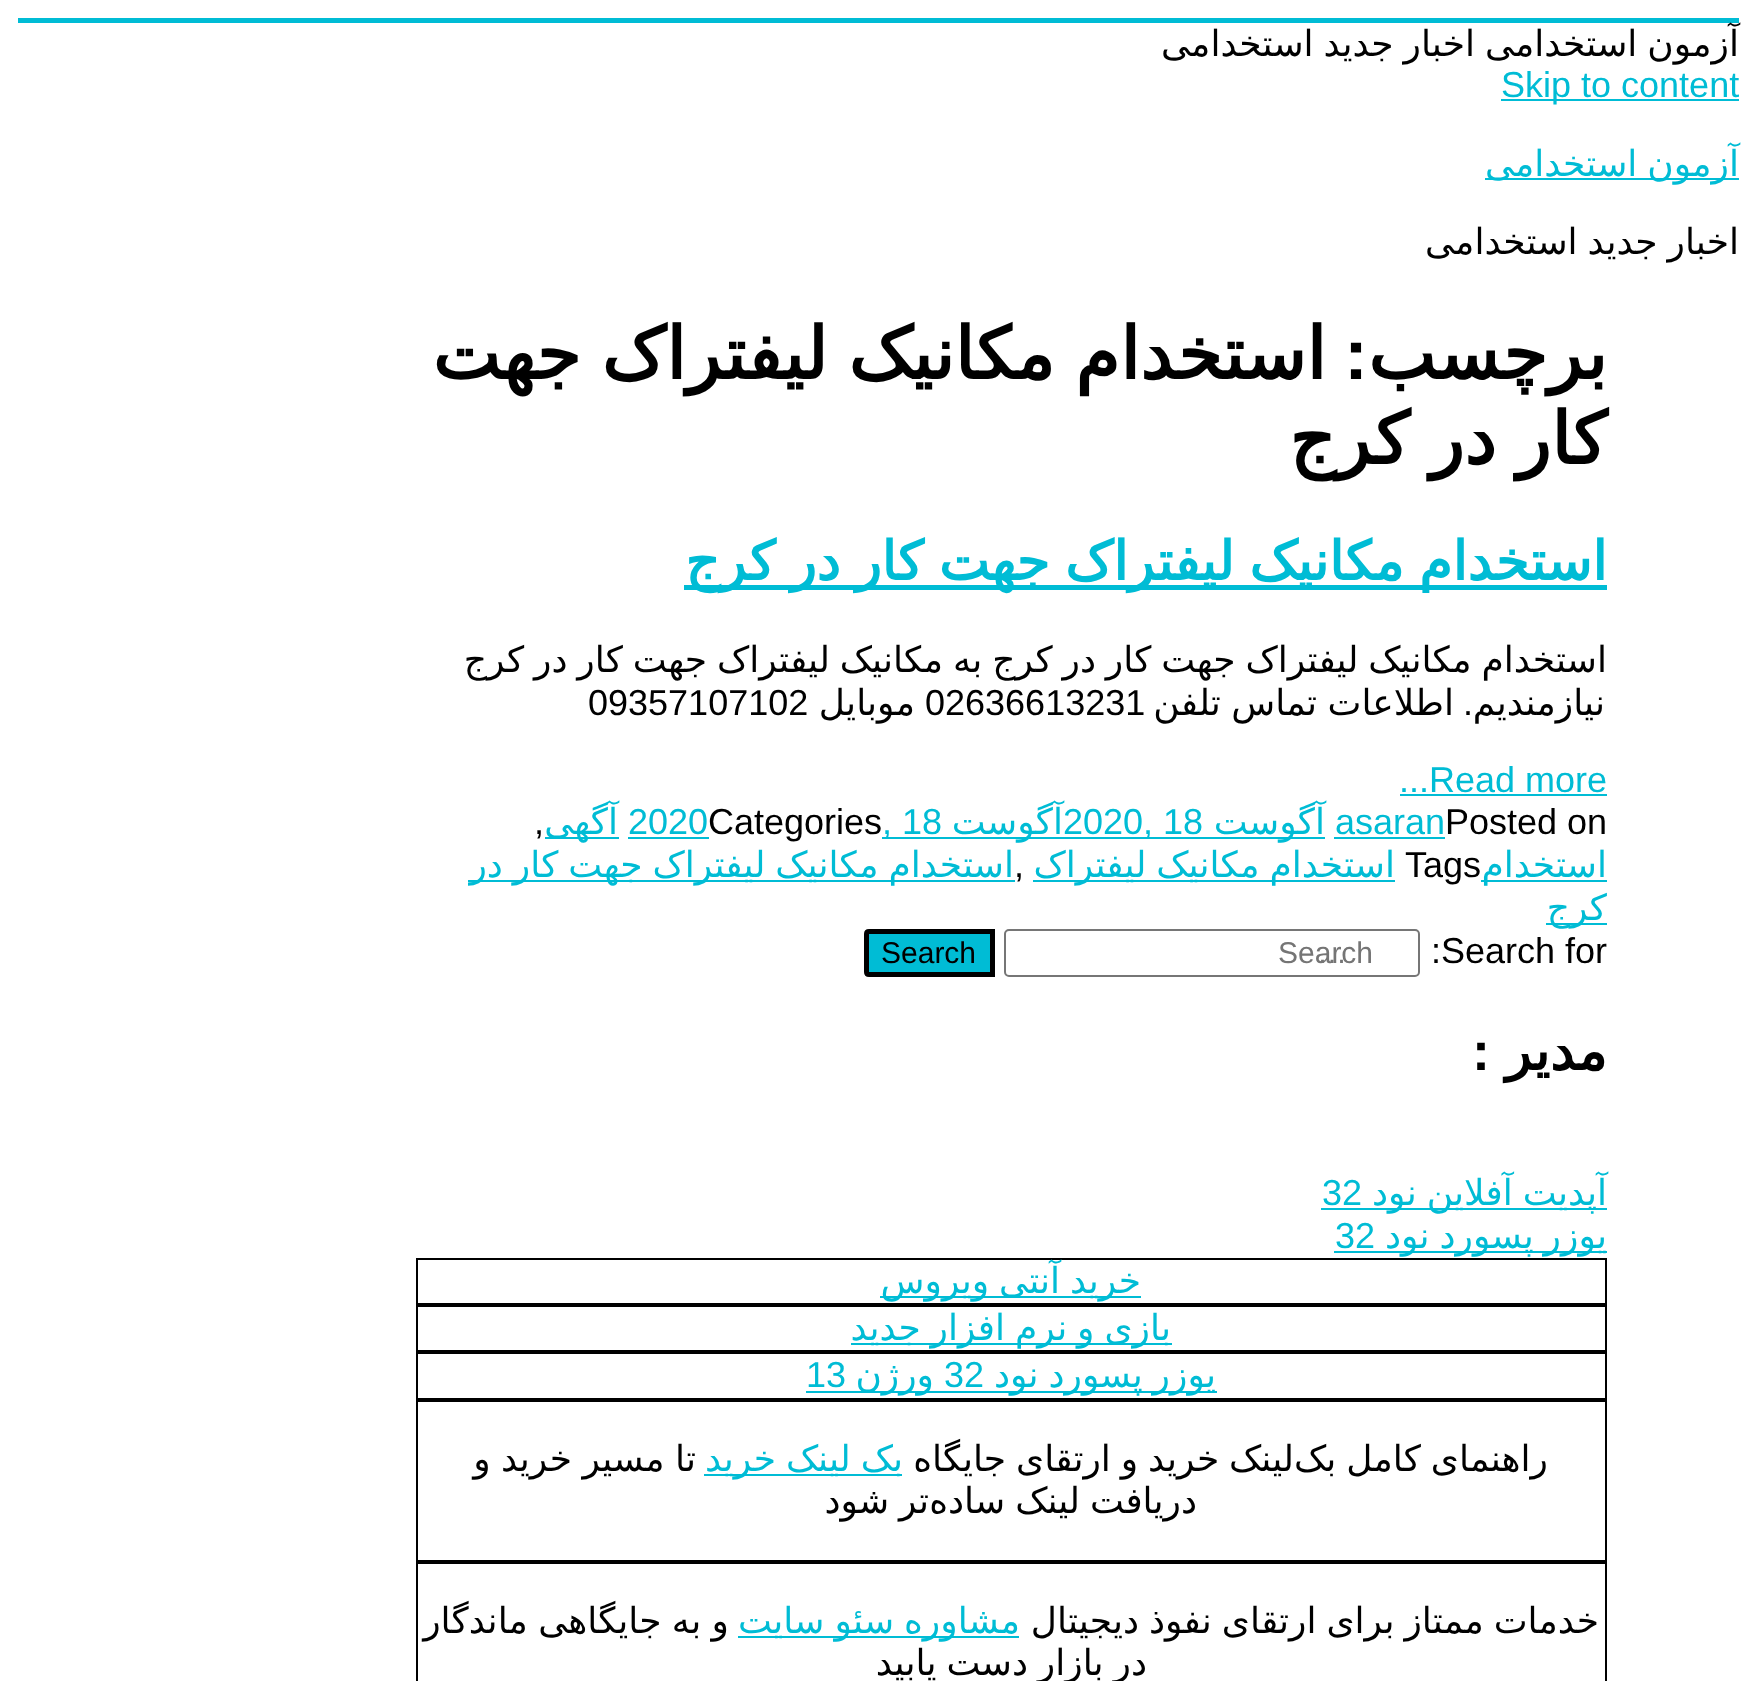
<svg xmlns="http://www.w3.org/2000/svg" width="1757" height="1681">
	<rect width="100%" height="100%" fill="#FFFFFF" />
	<rect x="18" y="18" width="1721" height="5" fill="#00BCD5" />
	<g font-family="DejaVu Sans" font-size="36" direction="rtl" fill="#000000">
		<text x="1739" y="56" word-spacing="-1.5">آزمون استخدامی</text>
		<text x="1475" y="56" word-spacing="-1.5">اخبار جدید استخدامی</text>
	</g>
	<rect x="1501" y="99" width="238" height="2" fill="#00BCD5" />
	<text x="1501" y="97" font-family="Liberation Sans" font-size="36" fill="#00BCD5">Skip to content</text>
	<rect x="1485" y="178" width="254" height="2" fill="#00BCD5" />
	<text x="1739" y="176" word-spacing="-1.5" font-family="DejaVu Sans" font-size="36" direction="rtl" fill="#00BCD5">آزمون استخدامی</text>
	<text x="1739" y="254" word-spacing="-1.5" font-family="DejaVu Sans" font-size="36" direction="rtl" fill="#000000">اخبار جدید استخدامی</text>
	<text x="1607" y="379" font-family="DejaVu Sans" font-size="72" font-weight="700" direction="rtl" fill="#000000">برچسب</text>
	<text x="1368" y="379" font-family="Liberation Sans" font-size="72" font-weight="700" direction="rtl" fill="#000000">:</text>
	<g font-family="DejaVu Sans" font-size="72" font-weight="700" direction="rtl" fill="#000000">
		<text x="1326" y="379" word-spacing="-2.25">استخدام مکانیک لیفتراک جهت</text>
		<text x="1607" y="464" word-spacing="-3">کار در کرج</text>
	</g>
	<rect x="684" y="585" width="923" height="5" fill="#00BCD5" />
	<text x="1607" y="580" word-spacing="-2.25" font-family="DejaVu Sans" font-size="54" font-weight="700" direction="rtl" fill="#00BCD5">استخدام مکانیک لیفتراک جهت کار در کرج</text>
	<g font-family="DejaVu Sans" font-size="36" direction="rtl" fill="#000000">
		<text x="1607" y="672" word-spacing="-1.5">استخدام مکانیک لیفتراک جهت کار در کرج به مکانیک لیفتراک جهت کار در کرج</text>
		<text x="1605" y="715">نیازمندیم</text>
	</g>
	<text x="1473" y="715" font-family="Liberation Sans" font-size="36" direction="rtl" fill="#000000">.</text>
	<text x="1454" y="715" word-spacing="-1" font-family="DejaVu Sans" font-size="36" direction="rtl" fill="#000000">اطلاعات تماس تلفن</text>
	<text x="925" y="715" font-family="Liberation Sans" font-size="36" fill="#000000">02636613231</text>
	<text x="915" y="715" font-family="DejaVu Sans" font-size="36" direction="rtl" fill="#000000">موبایل</text>
	<text x="588" y="715" font-family="Liberation Sans" font-size="36" fill="#000000">09357107102</text>
	<text x="1399" y="792" font-family="Liberation Sans" font-size="36" fill="#00BCD5">...Read more</text>
	<rect x="1400" y="794" width="207" height="2" fill="#00BCD5" />
	<text x="1445" y="834" font-family="Liberation Sans" font-size="36" fill="#000000">Posted on</text>
	<text x="1335" y="834" font-family="Liberation Sans" font-size="36" fill="#00BCD5">asaran</text>
	<rect x="1334" y="837" width="111" height="2" fill="#00BCD5" />
	<rect x="1064" y="837" width="261" height="2" fill="#00BCD5" />
	<text x="1325" y="834" font-family="DejaVu Sans" font-size="36" direction="rtl" fill="#00BCD5">آگوست</text>
	<text x="1063" y="834" font-family="Liberation Sans" font-size="36" fill="#00BCD5">2020, 18</text>
	<rect x="882" y="837" width="182" height="2" fill="#00BCD5" />
	<text x="1063" y="834" font-family="DejaVu Sans" font-size="36" direction="rtl" fill="#00BCD5">آگوست</text>
	<text x="882" y="834" font-family="Liberation Sans" font-size="36" fill="#00BCD5">, 18</text>
	<text x="708" y="834" font-family="Liberation Sans" font-size="36" fill="#000000">Categories</text>
	<text x="628" y="834" font-family="Liberation Sans" font-size="36" fill="#00BCD5">2020</text>
	<rect x="628" y="837" width="81" height="2" fill="#00BCD5" />
	<rect x="545" y="837" width="74" height="2" fill="#00BCD5" />
	<text x="618" y="834" font-family="DejaVu Sans" font-size="36" direction="rtl" fill="#00BCD5">آگهی</text>
	<text x="534" y="834" font-family="Liberation Sans" font-size="36" fill="#000000">,</text>
	<rect x="1481" y="880" width="126" height="2" fill="#00BCD5" />
	<text x="1607" y="877" font-family="DejaVu Sans" font-size="36" direction="rtl" fill="#00BCD5">استخدام</text>
	<text x="1405" y="877" font-family="Liberation Sans" font-size="36" fill="#000000">Tags</text>
	<rect x="1033" y="880" width="362" height="2" fill="#00BCD5" />
	<text x="1395" y="877" word-spacing="-1.5" font-family="DejaVu Sans" font-size="36" direction="rtl" fill="#00BCD5">استخدام مکانیک لیفتراک</text>
	<text x="1014" y="877" font-family="Liberation Sans" font-size="36" fill="#000000">,</text>
	<rect x="468" y="880" width="547" height="2" fill="#00BCD5" />
	<text x="1014" y="877" word-spacing="-1.5" font-family="DejaVu Sans" font-size="36" direction="rtl" fill="#00BCD5">استخدام مکانیک لیفتراک جهت کار در</text>
	<rect x="1546" y="923" width="61" height="2" fill="#00BCD5" />
	<text x="1607" y="920" font-family="DejaVu Sans" font-size="36" direction="rtl" fill="#00BCD5">کرج</text>
	<text x="1431" y="963" font-family="Liberation Sans" font-size="36" fill="#000000">:Search for</text>
	<rect x="1005" y="930" width="414" height="46" rx="4" fill="none" stroke="#767676" stroke-width="2" />
	<g font-family="Liberation Sans" font-size="30" fill="#757575">
		<text x="1278" y="963">Search</text>
		<text x="1317" y="963">…</text>
	</g>
	<path d="M869 931.5H992.5V974.5H869C867.5 974.5 866.5 973.5 866.5 972V934C866.5 932.5 867.5 931.5 869 931.5Z" fill="#00BCD5" stroke="#000000" stroke-width="5" />
	<text x="881" y="963" font-family="Liberation Sans" font-size="30" fill="#000000">Search</text>
	<text x="1607" y="1070" font-family="DejaVu Sans" font-size="54" font-weight="700" direction="rtl" fill="#000000">مدیر</text>
	<text x="1490" y="1070" font-family="Liberation Sans" font-size="54" font-weight="700" direction="rtl" fill="#000000">:</text>
	<rect x="1321" y="1208" width="286" height="2" fill="#00BCD5" />
	<text x="1607" y="1205" word-spacing="-1.5" font-family="DejaVu Sans" font-size="36" direction="rtl" fill="#00BCD5">آپدیت آفلاین نود</text>
	<text x="1322" y="1205" font-family="Liberation Sans" font-size="36" fill="#00BCD5">32</text>
	<rect x="1334" y="1251" width="273" height="2" fill="#00BCD5" />
	<text x="1607" y="1248" word-spacing="-1.5" font-family="DejaVu Sans" font-size="36" direction="rtl" fill="#00BCD5">یوزر پسورد نود</text>
	<text x="1335" y="1248" font-family="Liberation Sans" font-size="36" fill="#00BCD5">32</text>
	<rect x="417" y="1259" width="1189" height="45" fill="none" stroke="#000000" stroke-width="2" />
	<rect x="880" y="1296" width="261" height="2" fill="#00BCD5" />
	<text x="1141" y="1293" word-spacing="-1.5" font-family="DejaVu Sans" font-size="36" direction="rtl" fill="#00BCD5">خرید آنتی ویروس</text>
	<rect x="417" y="1306" width="1189" height="45" fill="none" stroke="#000000" stroke-width="2" />
	<rect x="851" y="1343" width="321" height="2" fill="#00BCD5" />
	<text x="1171" y="1340" word-spacing="-1.5" font-family="DejaVu Sans" font-size="36" direction="rtl" fill="#00BCD5">بازی و نرم افزار جدید</text>
	<rect x="417" y="1353" width="1189" height="46" fill="none" stroke="#000000" stroke-width="2" />
	<rect x="806" y="1391" width="411" height="2" fill="#00BCD5" />
	<text x="1216" y="1387" word-spacing="-1.5" font-family="DejaVu Sans" font-size="36" direction="rtl" fill="#00BCD5">یوزر پسورد نود</text>
	<text x="944" y="1387" font-family="Liberation Sans" font-size="36" fill="#00BCD5">32</text>
	<text x="934" y="1387" font-family="DejaVu Sans" font-size="36" direction="rtl" fill="#00BCD5">ورژن</text>
	<text x="806" y="1387" font-family="Liberation Sans" font-size="36" fill="#00BCD5">13</text>
	<rect x="417" y="1401" width="1189" height="160" fill="none" stroke="#000000" stroke-width="2" />
	<g font-family="DejaVu Sans" font-size="36" direction="rtl" fill="#000000">
		<text x="1294" y="1471" word-spacing="-1.5">لینک خرید و ارتقای جایگاه</text>
		<text x="1548" y="1471" word-spacing="-1.5">راهنمای کامل بک</text>
	</g>
	<rect x="704" y="1474" width="198" height="2" fill="#00BCD5" />
	<text x="903" y="1471" word-spacing="-1.5" font-family="DejaVu Sans" font-size="36" direction="rtl" fill="#00BCD5">بک لینک خرید</text>
	<g font-family="DejaVu Sans" font-size="36" direction="rtl" fill="#000000">
		<text x="696" y="1471" word-spacing="-1">تا مسیر خرید و</text>
		<text x="1197" y="1513" word-spacing="-1.5">دریافت لینک ساده</text>
		<text x="929" y="1513" word-spacing="-1.5">تر شود</text>
	</g>
	<rect x="417" y="1563" width="1189" height="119" fill="none" stroke="#000000" stroke-width="2" />
	<text x="1599" y="1633" word-spacing="-1.5" font-family="DejaVu Sans" font-size="36" direction="rtl" fill="#000000">خدمات ممتاز برای ارتقای نفوذ دیجیتال</text>
	<rect x="738" y="1636" width="281" height="2" fill="#00BCD5" />
	<text x="1020" y="1633" word-spacing="-1.5" font-family="DejaVu Sans" font-size="36" direction="rtl" fill="#00BCD5">مشاوره سئو سایت</text>
	<g font-family="DejaVu Sans" font-size="36" direction="rtl" fill="#000000">
		<text x="729" y="1633" word-spacing="-1">و به جایگاهی ماندگار</text>
		<text x="1147" y="1675" word-spacing="-1.5">در بازار دست یابید</text>
	</g>
</svg>
